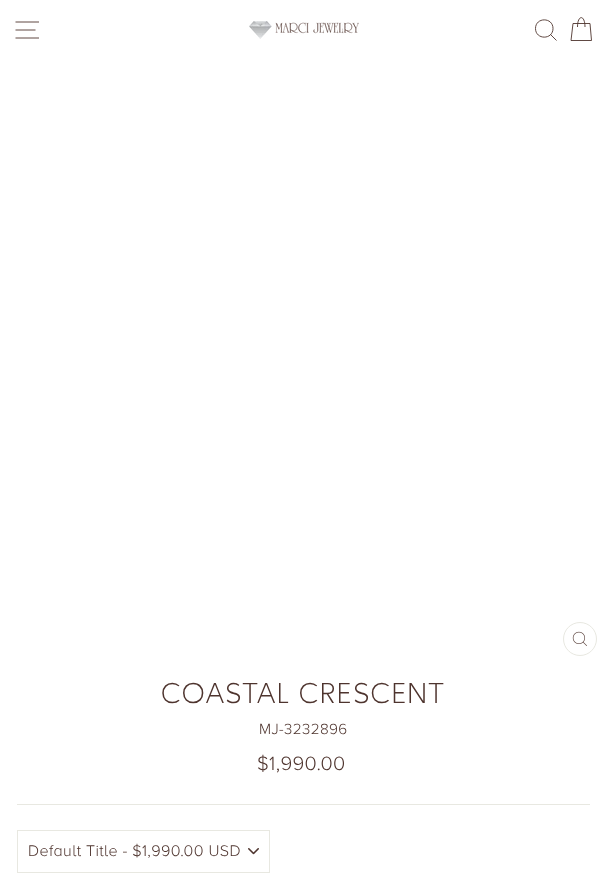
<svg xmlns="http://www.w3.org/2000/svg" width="607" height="896">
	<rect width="100%" height="100%" fill="#FFFFFF" />
	<path d="M15.5 22H39M15.5 30H35.5M15.5 38H39" fill="none" stroke="#4E342E" stroke-width="0.9" />
	<image x="249" y="21" width="110" height="18" href="assets/img1.png" />
	<path d="M553 28.5C553 40 535.5 40 535.5 28.5C535.5 17 553 17 553 28.5ZM556.5 40.5L550.5 34.5M577.5 27C577.5 14.5 585 14.5 585 27M573 23.5H590L591.5 40.5H571Z" fill="none" stroke="#4E342E" stroke-width="0.9" />
	<circle cx="580" cy="639" r="16.5" fill="none" stroke="#E8E8E1" />
	<image x="572" y="631" width="15" height="15" href="assets/img2.png" />
	<text x="161" y="703" font-family="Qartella" font-size="26.25" font-weight="300" letter-spacing="1.3" fill="#4E342E">COASTAL CRESCENT</text>
	<text x="259" y="734" font-family="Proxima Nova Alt" font-size="15.25" font-weight="300" letter-spacing="0.4" fill="#4E342E">MJ-3232896</text>
	<text x="257" y="770" font-family="Proxima Nova Alt" font-size="20" font-weight="300" letter-spacing="0.4" fill="#4E342E">$1,990.00</text>
	<rect x="17" y="804" width="573" height="1" fill="#E8E8E1" />
	<image x="248" y="848" width="11" height="7" href="assets/img3.png" />
	<rect x="17.5" y="830.5" width="252" height="42" fill="none" stroke="#E8E8E1" />
	<text x="28" y="856" font-family="Proxima Nova Alt" font-size="16" font-weight="300" letter-spacing="0.4" fill="#4E342E">Default Title - $1,990.00 USD</text>
</svg>
